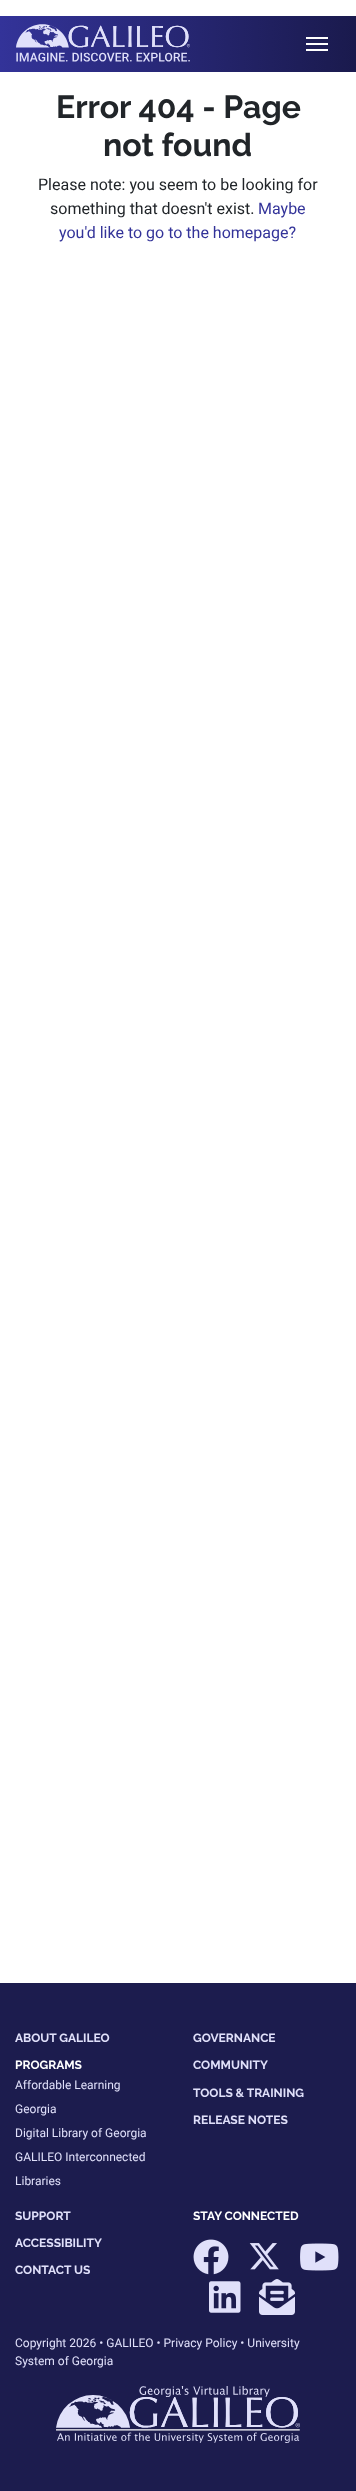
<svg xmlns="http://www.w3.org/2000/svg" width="356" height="2491">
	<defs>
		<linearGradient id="g1" gradientUnits="userSpaceOnUse" x1="0" y1="44" x2="356" y2="44"><stop offset="0" stop-color="#333399" /><stop offset="1" stop-color="#1A1A4D" /></linearGradient>
	</defs>
	<rect width="100%" height="100%" fill="#FFFFFF" />
	<rect x="0" y="16" width="356" height="56" fill="url(#g1)" />
	<image x="16" y="24" width="174" height="38" href="assets/img1.png" />
	<rect x="306" y="37" width="22" height="2" fill="#FFFFFF" />
	<rect x="306" y="43" width="22" height="2" fill="#FFFFFF" />
	<rect x="306" y="49" width="22" height="2" fill="#FFFFFF" />
	<g font-family="Raleway" font-size="32" font-weight="700" fill="#212529">
		<text x="56" y="118">Error 404 - Page</text>
		<text x="103" y="156">not found</text>
	</g>
	<g font-family="Roboto" font-size="16" fill="#212529">
		<text x="38" y="190">Please note: you seem to be looking for</text>
		<text x="50" y="214">something that doesn't exist.</text>
	</g>
	<g font-family="Roboto" font-size="16" fill="#333399">
		<text x="258" y="214">Maybe</text>
		<text x="59" y="238">you'd like to go to the homepage?</text>
	</g>
	<rect x="0" y="1983" width="356" height="508" fill="#1C1C4E" />
	<text x="15" y="2042" font-family="Raleway" font-size="12" font-weight="700" fill="#E0E0FA">ABOUT GALILEO</text>
	<text x="15" y="2069" font-family="Raleway" font-size="12" font-weight="700" fill="#FFFFFF">PROGRAMS</text>
	<g font-family="Roboto" font-size="12" fill="#E0E0FA">
		<text x="15" y="2089">Affordable Learning</text>
		<text x="15" y="2113">Georgia</text>
		<text x="15" y="2137">Digital Library of Georgia</text>
		<text x="15" y="2161">GALILEO Interconnected</text>
		<text x="15" y="2185">Libraries</text>
	</g>
	<g font-family="Raleway" font-size="12" font-weight="700" fill="#E0E0FA">
		<text x="193" y="2042">GOVERNANCE</text>
		<text x="193" y="2069">COMMUNITY</text>
		<text x="193" y="2097">TOOLS &amp; TRAINING</text>
		<text x="193" y="2124">RELEASE NOTES</text>
		<text x="15" y="2220">SUPPORT</text>
		<text x="15" y="2247">ACCESSIBILITY</text>
		<text x="15" y="2274">CONTACT US</text>
	</g>
	<text x="193" y="2220" font-family="Raleway" font-size="12" font-weight="700" fill="#FFFFFF">STAY CONNECTED</text>
	<image x="193" y="2239" width="36" height="36" href="assets/img2.png" />
	<image x="249" y="2243" width="30" height="27" href="assets/img3.png" />
	<image x="300" y="2243" width="39" height="28" href="assets/img4.png" />
	<image x="209" y="2281" width="32" height="32" href="assets/img5.png" />
	<image x="259" y="2279" width="36" height="36" href="assets/img6.png" />
	<g font-family="Roboto" font-size="12" fill="#E0E0FA">
		<text x="15" y="2347">Copyright 2026 • GALILEO • Privacy Policy • University</text>
		<text x="15" y="2365">System of Georgia</text>
	</g>
	<image x="56" y="2386" width="244" height="57" href="assets/img7.png" />
</svg>
